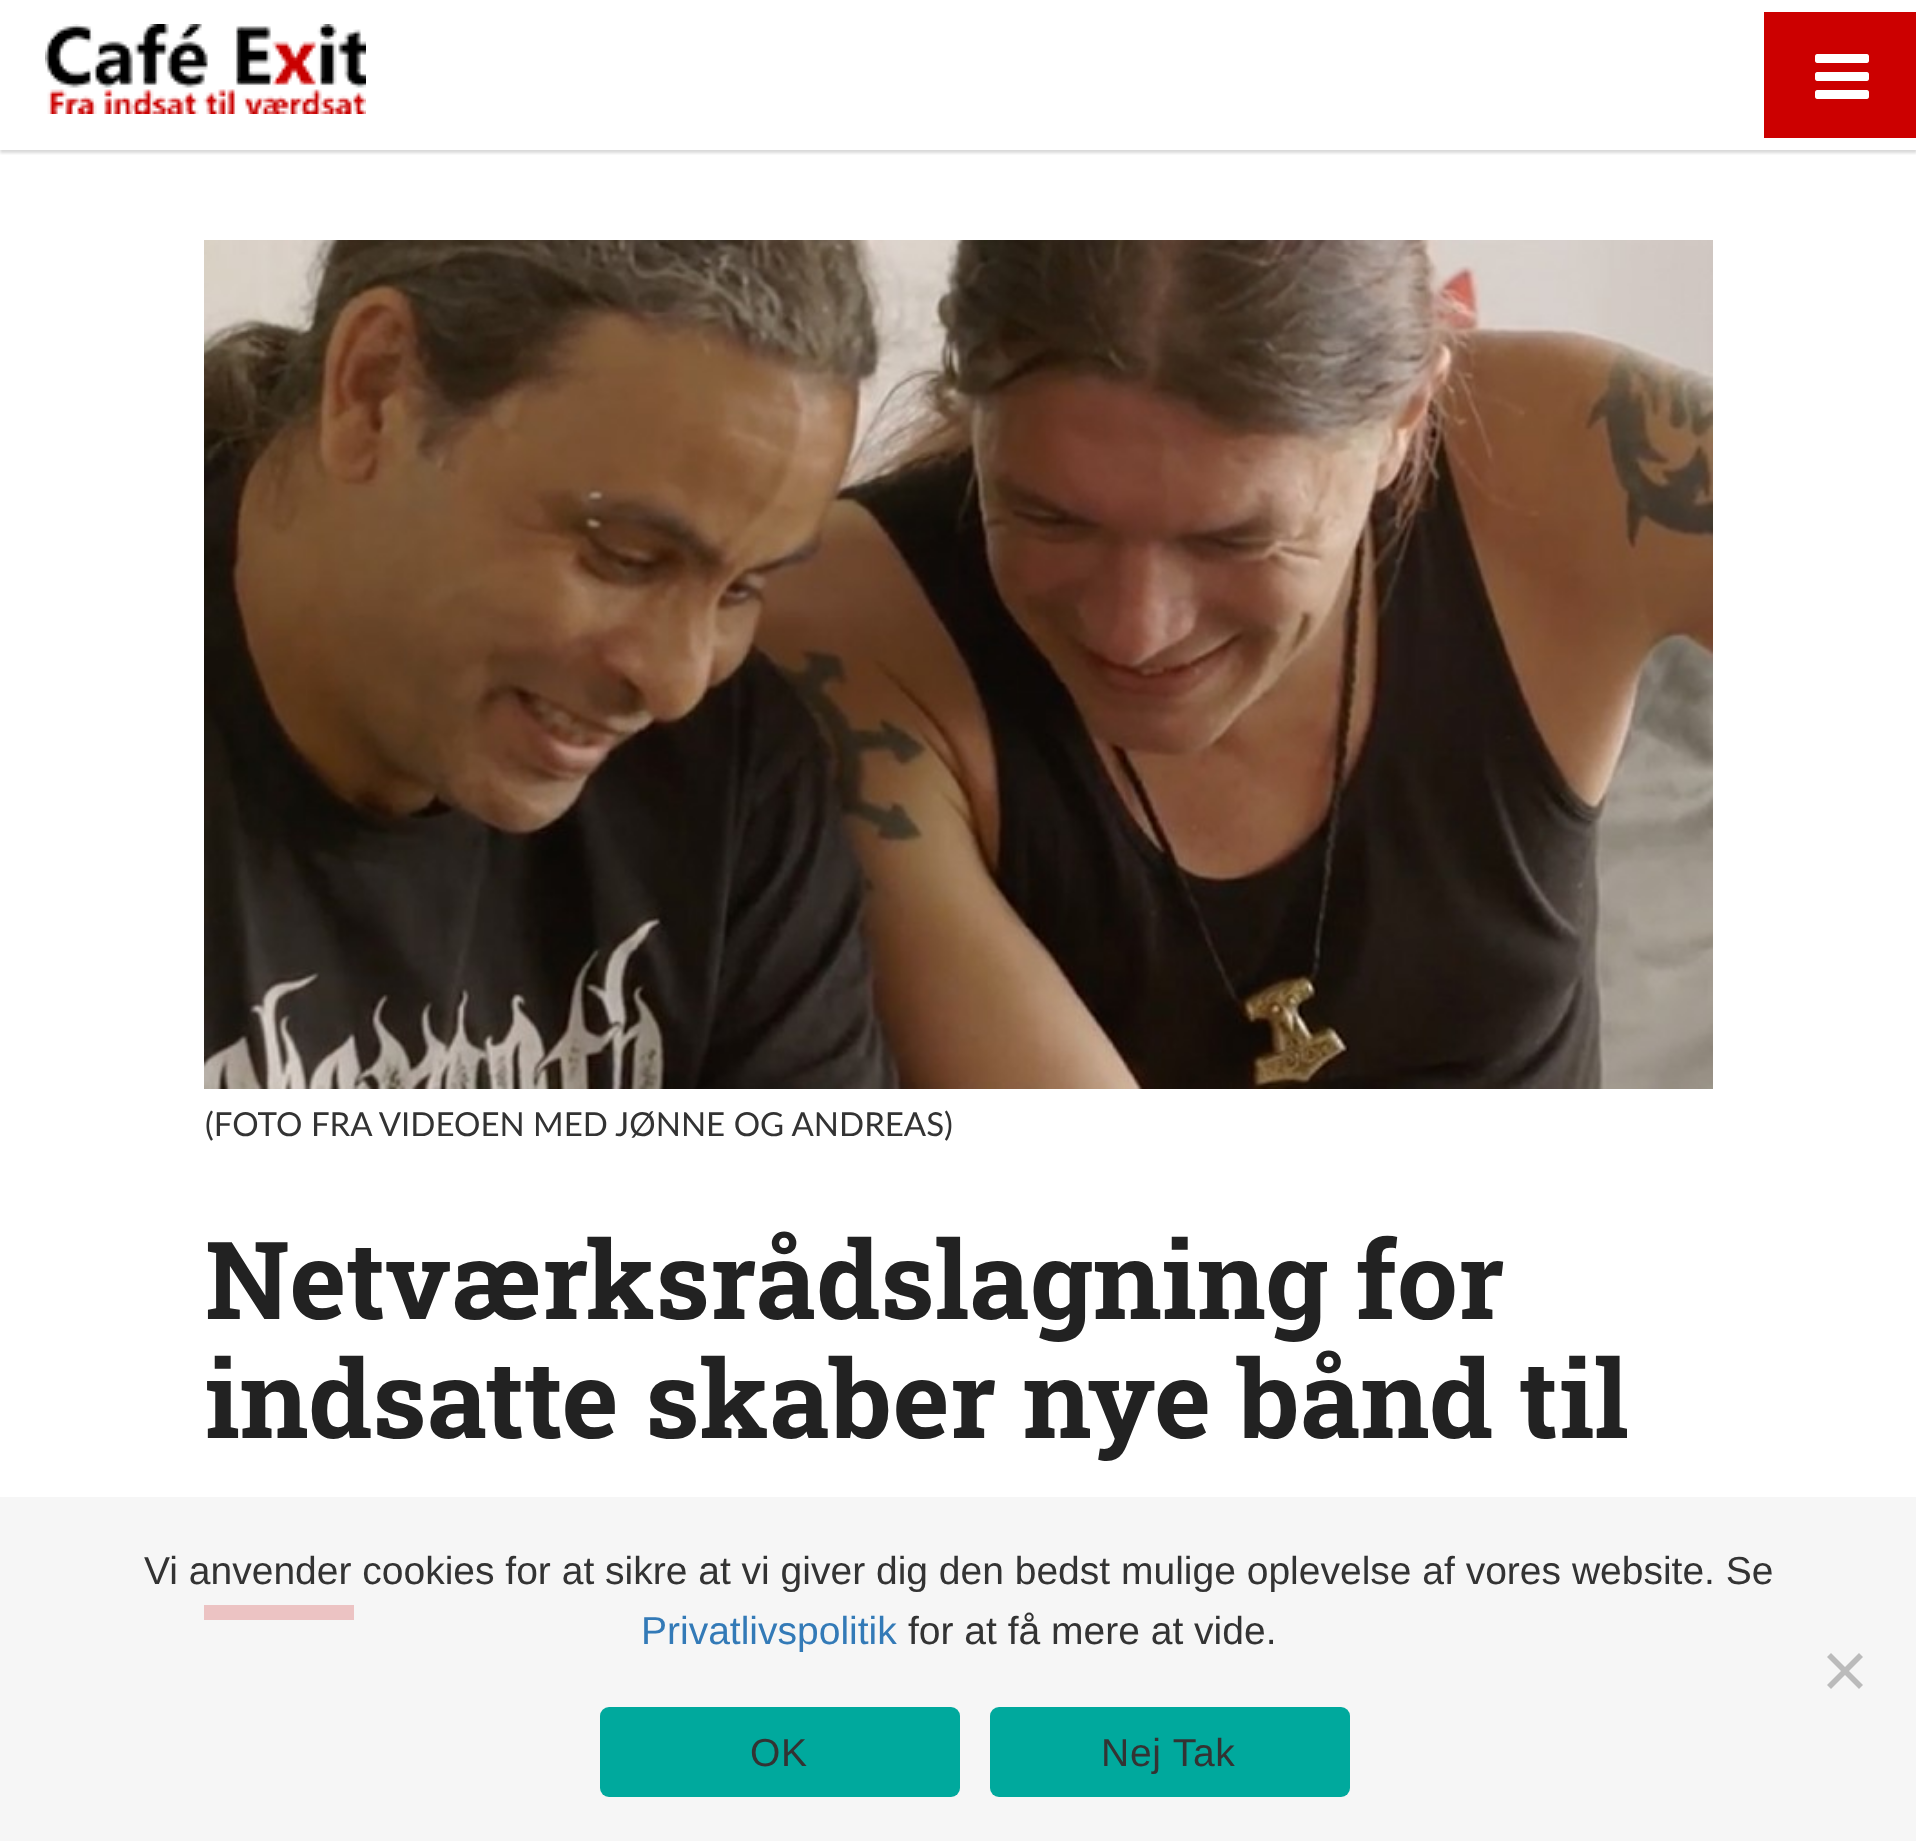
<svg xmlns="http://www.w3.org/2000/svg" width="1916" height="1841">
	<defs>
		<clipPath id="clip1"><rect x="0" y="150" width="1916" height="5" /></clipPath>
	</defs>
	<rect width="100%" height="100%" fill="#FFFFFF" />
	<g clip-path="url(#clip1)">
		<rect x="0" y="27" width="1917" height="126" fill="#000000" fill-opacity="0.15" filter="blur(1.5px)" />
	</g>
	<image x="45" y="24" width="321" height="90" href="assets/img1.png" />
	<rect x="1764" y="12" width="152" height="126" fill="#CC0000" />
	<image x="1815" y="54" width="54" height="45" href="assets/img2.png" />
	<image x="204" y="240" width="1509" height="849" href="assets/img3.png" />
	<text x="205" y="1136" font-family="Lato" font-size="33" fill="#333333">(FOTO FRA VIDEOEN MED JØNNE OG ANDREAS)</text>
	<g font-family="Roboto Slab" font-size="108" font-weight="700" fill="#222222">
		<text x="205" y="1319">Netværksrådslagning for</text>
		<text x="205" y="1438">indsatte skaber nye bånd til</text>
	</g>
	<rect x="204" y="1605" width="150" height="15" fill="#CC0000" />
	<rect x="0" y="1497" width="1916" height="344" fill="#F4F4F4" fill-opacity="0.8" />
	<text x="144" y="1584" font-family="Liberation Sans" font-size="39" fill="#333333">Vi anvender cookies for at sikre at vi giver dig den bedst mulige oplevelse af vores website. Se</text>
	<text x="641" y="1644" font-family="Liberation Sans" font-size="39" fill="#337AB7">Privatlivspolitik</text>
	<text x="908" y="1644" font-family="Liberation Sans" font-size="39" fill="#333333">for at få mere at vide.</text>
	<path d="M1859 1653L1863 1657L1831 1689L1827 1685Z" fill="#BBBBBB" />
	<path d="M1827 1657L1831 1653L1863 1685L1859 1689Z" fill="#BBBBBB" />
	<rect x="600" y="1707" width="360" height="90" rx="9" fill="#00A99D" />
	<text x="750" y="1766" font-family="Liberation Sans" font-size="39" letter-spacing="0.75" fill="#333333">OK</text>
	<rect x="990" y="1707" width="360" height="90" rx="9" fill="#00A99D" />
	<text x="1101" y="1766" font-family="Liberation Sans" font-size="39" letter-spacing="0.75" fill="#333333">Nej Tak</text>
</svg>
